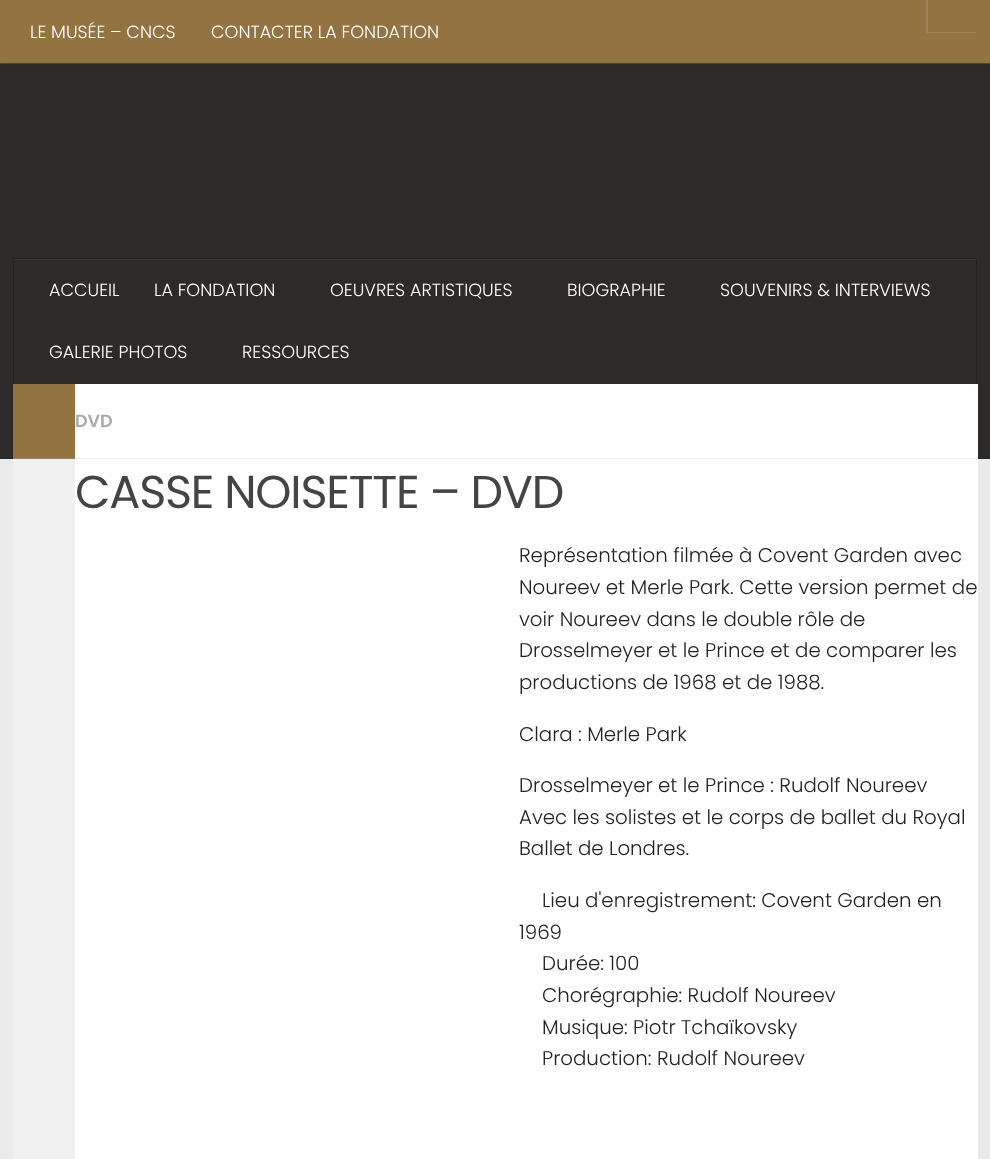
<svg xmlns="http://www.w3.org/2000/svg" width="990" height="1159">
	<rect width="100%" height="100%" fill="#EAEAEA" />
	<rect x="0" y="64" width="990" height="395" fill="#2C2B29" />
	<rect x="13" y="259" width="965" height="1" fill="#373634" />
	<rect x="0" y="63" width="990" height="1" fill="#4C4B49" />
	<rect x="0" y="0" width="990" height="63" fill="#000000" fill-opacity="0.2" filter="blur(3px)" />
	<rect x="0" y="0" width="990" height="63" fill="#937342" />
	<g font-family="Poppins" font-size="17.6" font-weight="300" fill="#FFFFFF">
		<text x="30" y="38">LE MUSÉE – CNCS</text>
		<text x="211" y="38">CONTACTER LA FONDATION</text>
	</g>
	<path d="M926 0V33H976V32H928V0Z" fill="#9E8155" />
	<path d="M13 258V259H978V383V258Z" fill="#232221" />
	<rect x="976" y="259" width="1" height="125" fill="#232221" />
	<rect x="976" y="259" width="1" height="1" fill="#2E2D2C" />
	<rect x="13" y="259" width="1" height="125" fill="#232221" />
	<rect x="13" y="259" width="1" height="1" fill="#2E2D2C" />
	<g font-family="Poppins" font-size="17.6" font-weight="300" fill="#FFFFFF">
		<text x="49" y="296">ACCUEIL</text>
		<text x="154" y="296">LA FONDATION</text>
		<text x="330" y="296">OEUVRES ARTISTIQUES</text>
		<text x="567" y="296">BIOGRAPHIE</text>
		<text x="720" y="296">SOUVENIRS &amp; INTERVIEWS</text>
		<text x="49" y="358">GALERIE PHOTOS</text>
		<text x="242" y="358">RESSOURCES</text>
	</g>
	<rect x="75" y="384" width="903" height="775" fill="#FFFFFF" />
	<rect x="13" y="459" width="62" height="700" fill="#F0F0F0" />
	<rect x="13" y="384" width="62" height="74" fill="#937342" />
	<rect x="13" y="458" width="62" height="1" fill="#9E8155" />
	<rect x="75" y="458" width="903" height="1" fill="#EEEEEE" />
	<text x="75" y="427" font-family="Poppins" font-size="17.6" font-weight="600" fill="#AAAAAA">DVD</text>
	<text x="75" y="508" font-family="Poppins" font-size="46.1" letter-spacing="-1.25" fill="#444444">CASSE NOISETTE – DVD</text>
	<g font-family="Poppins" font-size="19.8" font-weight="300" fill="#212226">
		<text x="519" y="562">Représentation filmée à Covent Garden avec</text>
		<text x="519" y="594">Noureev et Merle Park. Cette version permet de</text>
		<text x="519" y="626">voir Noureev dans le double rôle de</text>
		<text x="519" y="657">Drosselmeyer et le Prince et de comparer les</text>
		<text x="519" y="689">productions de 1968 et de 1988.</text>
		<text x="519" y="741">Clara : Merle Park</text>
		<text x="519" y="792">Drosselmeyer et le Prince : Rudolf Noureev</text>
		<text x="519" y="824">Avec les solistes et le corps de ballet du Royal</text>
		<text x="519" y="855">Ballet de Londres.</text>
		<text x="542" y="907">Lieu d'enregistrement: Covent Garden en</text>
		<text x="519" y="939">1969</text>
		<text x="542" y="970">Durée: 100</text>
		<text x="542" y="1002">Chorégraphie: Rudolf Noureev</text>
		<text x="542" y="1034">Musique: Piotr Tchaïkovsky</text>
		<text x="542" y="1065">Production: Rudolf Noureev</text>
	</g>
</svg>
